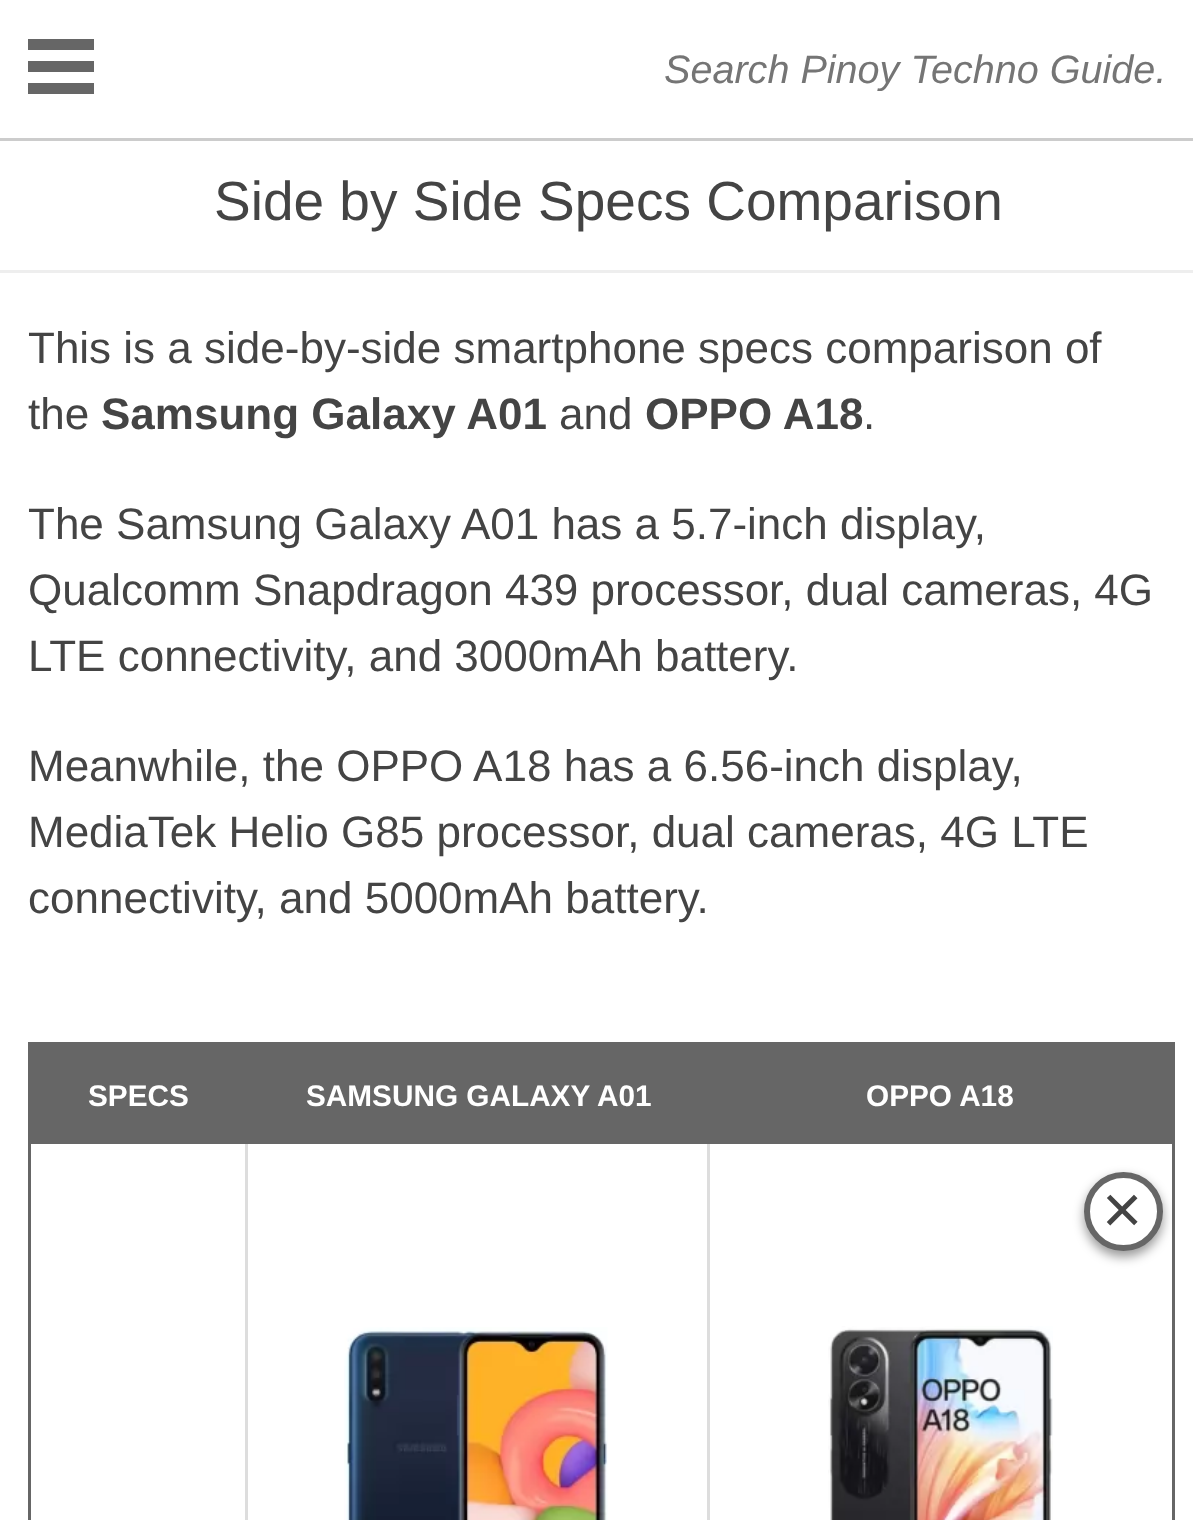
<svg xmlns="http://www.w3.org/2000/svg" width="1193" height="1520">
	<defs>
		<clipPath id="clip1"><rect x="663" y="47" width="500" height="44" /></clipPath>
	</defs>
	<rect width="100%" height="100%" fill="#FFFFFF" />
	<rect x="0" y="138" width="1193" height="3" fill="#CCCCCC" />
	<rect x="28" y="39" width="66" height="11" fill="#666666" />
	<rect x="28" y="61" width="66" height="11" fill="#666666" />
	<rect x="28" y="83" width="66" height="11" fill="#666666" />
	<g clip-path="url(#clip1)">
		<text x="664" y="83" font-family="Liberation Sans" font-size="39.6" font-style="italic" fill="#757575">Search Pinoy Techno Guide.</text>
	</g>
	<rect x="0" y="270" width="1193" height="3" fill="#EEEEEE" />
	<text x="214" y="220" font-family="Liberation Sans" font-size="55" fill="#444444">Side by Side Specs Comparison</text>
	<g font-family="Liberation Sans" font-size="44" fill="#444444">
		<text x="28" y="363">This is a side-by-side smartphone specs comparison of</text>
		<text x="28" y="429">the</text>
	</g>
	<text x="101" y="429" font-family="Liberation Sans" font-size="44" font-weight="700" fill="#444444">Samsung Galaxy A01</text>
	<text x="559" y="429" font-family="Liberation Sans" font-size="44" fill="#444444">and</text>
	<text x="645" y="429" font-family="Liberation Sans" font-size="44" font-weight="700" fill="#444444">OPPO A18</text>
	<g font-family="Liberation Sans" font-size="44" fill="#444444">
		<text x="863" y="429">.</text>
		<text x="28" y="539">The Samsung Galaxy A01 has a 5.7-inch display,</text>
		<text x="28" y="605">Qualcomm Snapdragon 439 processor, dual cameras, 4G</text>
		<text x="28" y="671">LTE connectivity, and 3000mAh battery.</text>
		<text x="28" y="781">Meanwhile, the OPPO A18 has a 6.56-inch display,</text>
		<text x="28" y="847">MediaTek Helio G85 processor, dual cameras, 4G LTE</text>
		<text x="28" y="913">connectivity, and 5000mAh battery.</text>
	</g>
	<rect x="28" y="1042" width="1146" height="3" fill="#666666" />
	<rect x="1172" y="1042" width="3" height="478" fill="#666666" />
	<rect x="28" y="1042" width="3" height="478" fill="#666666" />
	<rect x="31" y="1045" width="1141" height="99" fill="#666666" />
	<g font-family="Liberation Sans" font-size="29.75" font-weight="700" fill="#FFFFFF">
		<text x="88" y="1106">SPECS</text>
		<text x="306" y="1106">SAMSUNG GALAXY A01</text>
		<text x="866" y="1106">OPPO A18</text>
	</g>
	<rect x="245" y="1144" width="3" height="376" fill="#DDDDDD" />
	<image x="344" y="1327" width="264" height="193" href="assets/img1.png" />
	<rect x="707" y="1144" width="3" height="376" fill="#DDDDDD" />
	<rect x="1084" y="1177" width="79" height="80" rx="39.5" fill="#000000" fill-opacity="0.4" filter="blur(5.5px)" />
	<circle cx="1123.5" cy="1211.5" r="36.5" fill="#FFFFFF" stroke="#666666" stroke-width="6" />
	<text x="1102" y="1233" font-family="Liberation Sans" font-size="69" fill="#444444">×</text>
	<image x="828" y="1326" width="225" height="194" href="assets/img2.png" />
</svg>
